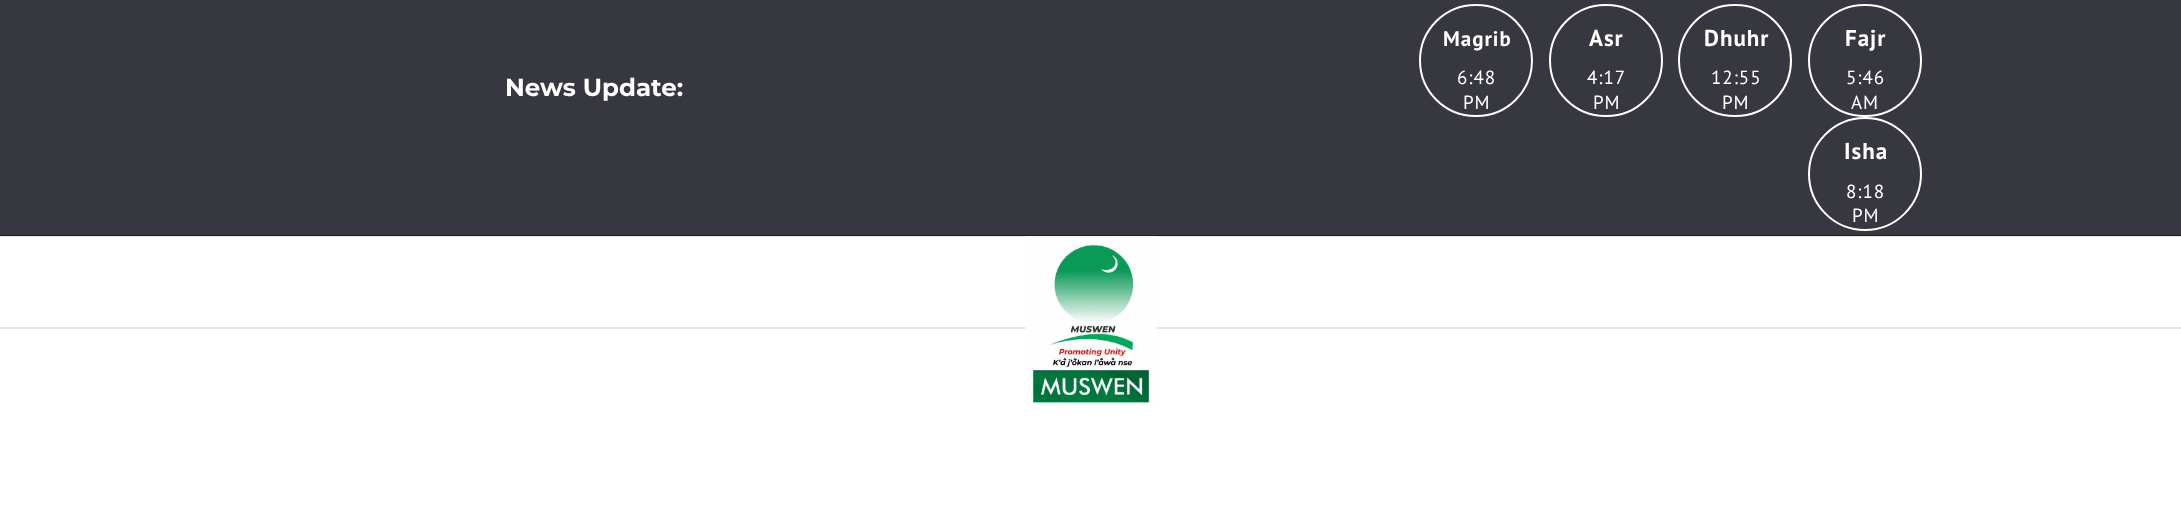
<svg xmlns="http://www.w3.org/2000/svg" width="2181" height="525">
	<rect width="100%" height="100%" fill="#FFFFFF" />
	<rect x="0" y="0" width="2181" height="235" fill="#37373F" />
	<rect x="0" y="235" width="2181" height="1" fill="#1C1B1F" />
	<rect x="0" y="236" width="2181" height="1" fill="#E8E8E9" />
	<text x="505" y="96" font-family="Montserrat" font-size="24.5" font-weight="700" fill="#FFFFFF">News Update:</text>
	<rect x="1420" y="5" width="112" height="111" rx="55.5" fill="none" stroke="#FFFFFF" stroke-width="2" />
	<text x="1443" y="46" font-family="PT Sans" font-size="21" font-weight="700" letter-spacing="1" fill="#FFFFFF">Magrib</text>
	<g font-family="PT Sans" font-size="19" letter-spacing="1" fill="#FFFFFF">
		<text x="1457" y="84">6:48</text>
		<text x="1463" y="109">PM</text>
	</g>
	<rect x="1550" y="5" width="112" height="111" rx="55.5" fill="none" stroke="#FFFFFF" stroke-width="2" />
	<text x="1589" y="46" font-family="PT Sans" font-size="23" font-weight="700" letter-spacing="1" fill="#FFFFFF">Asr</text>
	<g font-family="PT Sans" font-size="19" letter-spacing="1" fill="#FFFFFF">
		<text x="1587" y="84">4:17</text>
		<text x="1593" y="109">PM</text>
	</g>
	<rect x="1679" y="5" width="112" height="111" rx="55.5" fill="none" stroke="#FFFFFF" stroke-width="2" />
	<text x="1704" y="46" font-family="PT Sans" font-size="23" font-weight="700" letter-spacing="1" fill="#FFFFFF">Dhuhr</text>
	<g font-family="PT Sans" font-size="19" letter-spacing="1" fill="#FFFFFF">
		<text x="1711" y="84">12:55</text>
		<text x="1722" y="109">PM</text>
	</g>
	<rect x="1809" y="5" width="112" height="111" rx="55.5" fill="none" stroke="#FFFFFF" stroke-width="2" />
	<text x="1845" y="46" font-family="PT Sans" font-size="23" font-weight="700" letter-spacing="1" fill="#FFFFFF">Fajr</text>
	<g font-family="PT Sans" font-size="19" letter-spacing="1" fill="#FFFFFF">
		<text x="1846" y="84">5:46</text>
		<text x="1851" y="109">AM</text>
	</g>
	<circle cx="1865" cy="174" r="56" fill="none" stroke="#FFFFFF" stroke-width="2" />
	<text x="1844" y="159" font-family="PT Sans" font-size="23" font-weight="700" letter-spacing="1" fill="#FFFFFF">Isha</text>
	<g font-family="PT Sans" font-size="19" letter-spacing="1" fill="#FFFFFF">
		<text x="1846" y="198">8:18</text>
		<text x="1852" y="222">PM</text>
	</g>
	<rect x="0" y="327" width="2181" height="2" fill="#E5E5E5" />
	<image x="1025" y="236" width="132" height="169" href="assets/img1.png" />
</svg>
